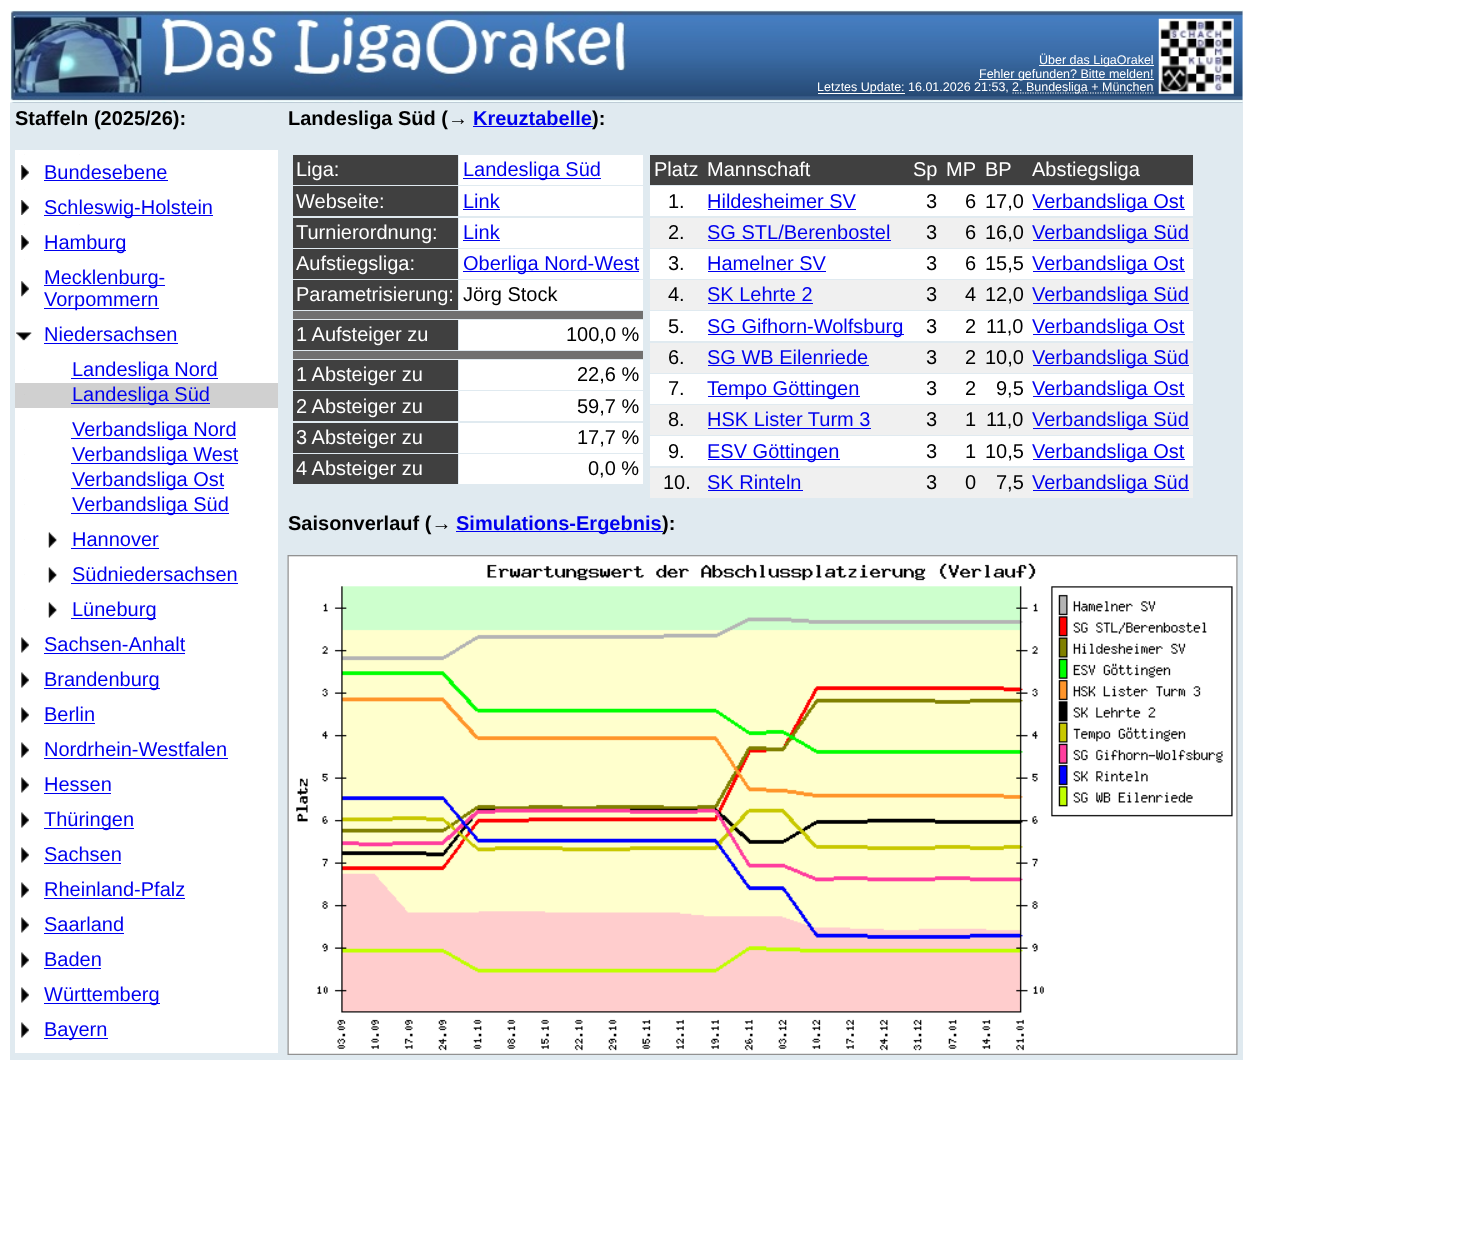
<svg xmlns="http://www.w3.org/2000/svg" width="1483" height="1244">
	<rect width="100%" height="100%" fill="#FFFFFF" />
	<rect x="10" y="10" width="1233" height="1050" fill="#E0EAF0" />
	<image x="10" y="10" width="1233" height="93" href="assets/img1.png" />
	<rect x="1039" y="65" width="115" height="1" fill="#FFFFFF" />
	<text x="1039" y="64" font-family="Liberation Sans" font-size="12.5" fill="#FFFFFF">Über das LigaOrakel</text>
	<rect x="979" y="79" width="175" height="1" fill="#FFFFFF" />
	<text x="979" y="78" font-family="Liberation Sans" font-size="12.5" fill="#FFFFFF">Fehler gefunden? Bitte melden!</text>
	<rect x="818" y="93" width="87" height="1" fill="#FFFFFF" />
	<text x="817" y="91" font-family="Liberation Sans" font-size="12.5" fill="#FFFFFF">Letztes Update: 16.01.2026 21:53,</text>
	<path d="M1012.5 93H1154" fill="none" stroke="#FFFFFF" stroke-width="1.2" stroke-dasharray="1.25 1.25" />
	<text x="1012" y="91" font-family="Liberation Sans" font-size="12.5" fill="#FFFFFF">2. Bundesliga + München</text>
	<image x="1158" y="18" width="76" height="76" href="assets/img2.png" />
	<text x="15" y="125" font-family="Liberation Sans" font-size="20" font-weight="700" fill="#000000">Staffeln (2025/26):</text>
	<rect x="15" y="150" width="263" height="10" fill="#FFFFFF" />
	<rect x="24" y="154" width="1" height="1" fill="#FAFAFA" />
	<rect x="79" y="154" width="1" height="1" fill="#FAFAFA" />
	<rect x="15" y="160" width="263" height="25" fill="#FFFFFF" />
	<image x="21" y="165" width="8" height="15" href="assets/img3.png" />
	<text x="44" y="179" font-family="Liberation Sans" font-size="20" fill="#0000EE">Bundesebene</text>
	<rect x="44" y="180" width="124" height="1" fill="#0000EE" />
	<rect x="15" y="185" width="263" height="10" fill="#FFFFFF" />
	<rect x="24" y="189" width="1" height="1" fill="#FAFAFA" />
	<rect x="79" y="189" width="1" height="1" fill="#FAFAFA" />
	<rect x="15" y="195" width="263" height="25" fill="#FFFFFF" />
	<image x="21" y="200" width="8" height="15" href="assets/img3.png" />
	<rect x="44" y="215" width="169" height="1" fill="#0000EE" />
	<text x="44" y="214" font-family="Liberation Sans" font-size="20" fill="#0000EE">Schleswig-Holstein</text>
	<rect x="15" y="220" width="263" height="10" fill="#FFFFFF" />
	<rect x="24" y="224" width="1" height="1" fill="#FAFAFA" />
	<rect x="79" y="224" width="1" height="1" fill="#FAFAFA" />
	<rect x="15" y="230" width="263" height="25" fill="#FFFFFF" />
	<image x="21" y="235" width="8" height="15" href="assets/img3.png" />
	<rect x="44" y="250" width="82" height="1" fill="#0000EE" />
	<text x="44" y="249" font-family="Liberation Sans" font-size="20" fill="#0000EE">Hamburg</text>
	<rect x="15" y="255" width="263" height="10" fill="#FFFFFF" />
	<rect x="24" y="259" width="1" height="1" fill="#FAFAFA" />
	<rect x="79" y="259" width="1" height="1" fill="#FAFAFA" />
	<rect x="15" y="265" width="263" height="48" fill="#FFFFFF" />
	<image x="21" y="281" width="8" height="16" href="assets/img4.png" />
	<rect x="44" y="285" width="121" height="1" fill="#0000EE" />
	<text x="44" y="284" font-family="Liberation Sans" font-size="20" fill="#0000EE">Mecklenburg-</text>
	<rect x="44" y="308" width="115" height="1" fill="#0000EE" />
	<text x="44" y="306" font-family="Liberation Sans" font-size="20" fill="#0000EE">Vorpommern</text>
	<rect x="15" y="313" width="263" height="10" fill="#FFFFFF" />
	<rect x="15" y="323" width="263" height="25" fill="#FFFFFF" />
	<image x="16" y="332" width="16" height="9" href="assets/img5.png" />
	<text x="44" y="341" font-family="Liberation Sans" font-size="20" fill="#0000EE">Niedersachsen</text>
	<rect x="44" y="343" width="134" height="1" fill="#0000EE" />
	<rect x="15" y="348" width="263" height="10" fill="#FFFFFF" />
	<rect x="15" y="358" width="263" height="25" fill="#FFFFFF" />
	<rect x="24" y="369" width="1" height="1" fill="#FAFAFA" />
	<rect x="71" y="378" width="147" height="1" fill="#0000EE" />
	<text x="72" y="376" font-family="Liberation Sans" font-size="20" fill="#0000EE">Landesliga Nord</text>
	<rect x="15" y="383" width="263" height="25" fill="#D0D0D0" />
	<rect x="24" y="394" width="1" height="1" fill="#CCCCCC" />
	<rect x="71" y="403" width="139" height="1" fill="#0000EE" />
	<text x="72" y="401" font-family="Liberation Sans" font-size="20" fill="#0000EE">Landesliga Süd</text>
	<rect x="15" y="408" width="263" height="10" fill="#FFFFFF" />
	<rect x="15" y="418" width="263" height="25" fill="#FFFFFF" />
	<rect x="24" y="429" width="1" height="1" fill="#FAFAFA" />
	<rect x="71" y="438" width="165" height="1" fill="#0000EE" />
	<text x="72" y="436" font-family="Liberation Sans" font-size="20" fill="#0000EE">Verbandsliga Nord</text>
	<rect x="15" y="443" width="263" height="25" fill="#FFFFFF" />
	<rect x="24" y="454" width="1" height="1" fill="#FAFAFA" />
	<rect x="71" y="463" width="167" height="1" fill="#0000EE" />
	<text x="72" y="461" font-family="Liberation Sans" font-size="20" fill="#0000EE">Verbandsliga West</text>
	<rect x="15" y="468" width="263" height="25" fill="#FFFFFF" />
	<rect x="24" y="479" width="1" height="1" fill="#FAFAFA" />
	<rect x="71" y="488" width="153" height="1" fill="#0000EE" />
	<text x="72" y="486" font-family="Liberation Sans" font-size="20" fill="#0000EE">Verbandsliga Ost</text>
	<rect x="15" y="493" width="263" height="25" fill="#FFFFFF" />
	<rect x="24" y="504" width="1" height="1" fill="#FAFAFA" />
	<rect x="71" y="513" width="158" height="1" fill="#0000EE" />
	<text x="72" y="511" font-family="Liberation Sans" font-size="20" fill="#0000EE">Verbandsliga Süd</text>
	<rect x="15" y="518" width="263" height="10" fill="#FFFFFF" />
	<rect x="15" y="528" width="263" height="25" fill="#FFFFFF" />
	<rect x="24" y="539" width="1" height="1" fill="#FAFAFA" />
	<image x="48" y="532" width="9" height="16" href="assets/img6.png" />
	<text x="72" y="546" font-family="Liberation Sans" font-size="20" fill="#0000EE">Hannover</text>
	<rect x="71" y="548" width="88" height="1" fill="#0000EE" />
	<rect x="15" y="553" width="263" height="10" fill="#FFFFFF" />
	<rect x="15" y="563" width="263" height="25" fill="#FFFFFF" />
	<rect x="24" y="574" width="1" height="1" fill="#FAFAFA" />
	<image x="48" y="567" width="9" height="16" href="assets/img6.png" />
	<text x="72" y="581" font-family="Liberation Sans" font-size="20" fill="#0000EE">Südniedersachsen</text>
	<rect x="71" y="583" width="167" height="1" fill="#0000EE" />
	<rect x="15" y="588" width="263" height="10" fill="#FFFFFF" />
	<rect x="15" y="598" width="263" height="25" fill="#FFFFFF" />
	<rect x="24" y="609" width="1" height="1" fill="#FAFAFA" />
	<image x="48" y="602" width="9" height="16" href="assets/img6.png" />
	<rect x="71" y="618" width="85" height="1" fill="#0000EE" />
	<text x="72" y="616" font-family="Liberation Sans" font-size="20" fill="#0000EE">Lüneburg</text>
	<rect x="15" y="623" width="263" height="10" fill="#FFFFFF" />
	<rect x="15" y="633" width="263" height="25" fill="#FFFFFF" />
	<image x="21" y="637" width="8" height="16" href="assets/img7.png" />
	<text x="44" y="651" font-family="Liberation Sans" font-size="20" fill="#0000EE">Sachsen-Anhalt</text>
	<rect x="44" y="653" width="141" height="1" fill="#0000EE" />
	<rect x="15" y="658" width="263" height="10" fill="#FFFFFF" />
	<rect x="15" y="668" width="263" height="25" fill="#FFFFFF" />
	<image x="21" y="672" width="8" height="16" href="assets/img7.png" />
	<rect x="44" y="688" width="116" height="1" fill="#0000EE" />
	<text x="44" y="686" font-family="Liberation Sans" font-size="20" fill="#0000EE">Brandenburg</text>
	<rect x="15" y="693" width="263" height="10" fill="#FFFFFF" />
	<rect x="15" y="703" width="263" height="25" fill="#FFFFFF" />
	<image x="21" y="707" width="8" height="16" href="assets/img7.png" />
	<text x="44" y="721" font-family="Liberation Sans" font-size="20" fill="#0000EE">Berlin</text>
	<rect x="44" y="723" width="51" height="1" fill="#0000EE" />
	<rect x="15" y="728" width="263" height="10" fill="#FFFFFF" />
	<rect x="15" y="738" width="263" height="25" fill="#FFFFFF" />
	<image x="21" y="742" width="8" height="16" href="assets/img7.png" />
	<text x="44" y="756" font-family="Liberation Sans" font-size="20" fill="#0000EE">Nordrhein-Westfalen</text>
	<rect x="44" y="758" width="184" height="1" fill="#0000EE" />
	<rect x="15" y="763" width="263" height="10" fill="#FFFFFF" />
	<rect x="15" y="773" width="263" height="25" fill="#FFFFFF" />
	<image x="21" y="777" width="8" height="16" href="assets/img8.png" />
	<text x="44" y="791" font-family="Liberation Sans" font-size="20" fill="#0000EE">Hessen</text>
	<rect x="44" y="793" width="67" height="1" fill="#0000EE" />
	<rect x="15" y="798" width="263" height="10" fill="#FFFFFF" />
	<rect x="15" y="808" width="263" height="25" fill="#FFFFFF" />
	<image x="21" y="812" width="8" height="16" href="assets/img7.png" />
	<rect x="44" y="828" width="90" height="1" fill="#0000EE" />
	<text x="44" y="826" font-family="Liberation Sans" font-size="20" fill="#0000EE">Thüringen</text>
	<rect x="15" y="833" width="263" height="10" fill="#FFFFFF" />
	<rect x="15" y="843" width="263" height="25" fill="#FFFFFF" />
	<image x="21" y="847" width="8" height="16" href="assets/img7.png" />
	<text x="44" y="861" font-family="Liberation Sans" font-size="20" fill="#0000EE">Sachsen</text>
	<rect x="44" y="863" width="77" height="1" fill="#0000EE" />
	<rect x="15" y="868" width="263" height="10" fill="#FFFFFF" />
	<rect x="15" y="878" width="263" height="25" fill="#FFFFFF" />
	<image x="21" y="882" width="8" height="16" href="assets/img7.png" />
	<text x="44" y="896" font-family="Liberation Sans" font-size="20" fill="#0000EE">Rheinland-Pfalz</text>
	<rect x="44" y="898" width="141" height="1" fill="#0000EE" />
	<rect x="15" y="903" width="263" height="10" fill="#FFFFFF" />
	<rect x="15" y="913" width="263" height="25" fill="#FFFFFF" />
	<image x="21" y="917" width="8" height="16" href="assets/img7.png" />
	<text x="44" y="931" font-family="Liberation Sans" font-size="20" fill="#0000EE">Saarland</text>
	<rect x="44" y="933" width="80" height="1" fill="#0000EE" />
	<rect x="15" y="938" width="263" height="10" fill="#FFFFFF" />
	<rect x="15" y="948" width="263" height="25" fill="#FFFFFF" />
	<image x="21" y="952" width="8" height="16" href="assets/img7.png" />
	<text x="44" y="966" font-family="Liberation Sans" font-size="20" fill="#0000EE">Baden</text>
	<rect x="44" y="968" width="57" height="1" fill="#0000EE" />
	<rect x="15" y="973" width="263" height="10" fill="#FFFFFF" />
	<rect x="15" y="983" width="263" height="25" fill="#FFFFFF" />
	<image x="21" y="987" width="8" height="16" href="assets/img7.png" />
	<rect x="44" y="1003" width="116" height="1" fill="#0000EE" />
	<text x="44" y="1001" font-family="Liberation Sans" font-size="20" fill="#0000EE">Württemberg</text>
	<rect x="15" y="1008" width="263" height="10" fill="#FFFFFF" />
	<rect x="15" y="1018" width="263" height="25" fill="#FFFFFF" />
	<image x="21" y="1022" width="8" height="16" href="assets/img8.png" />
	<rect x="44" y="1038" width="64" height="1" fill="#0000EE" />
	<text x="44" y="1036" font-family="Liberation Sans" font-size="20" fill="#0000EE">Bayern</text>
	<rect x="15" y="1043" width="263" height="10" fill="#FFFFFF" />
	<text x="288" y="125" font-family="Liberation Sans" font-size="20" font-weight="700" fill="#000000">Landesliga Süd (→</text>
	<text x="473" y="125" font-family="Liberation Sans" font-size="20" font-weight="700" fill="#0000EE">Kreuztabelle</text>
	<rect x="473" y="126" width="120" height="1" fill="#0000EE" />
	<text x="592" y="125" font-family="Liberation Sans" font-size="20" font-weight="700" fill="#000000">):</text>
	<rect x="293" y="155" width="165" height="30" fill="#404040" />
	<text x="296" y="176" font-family="Liberation Sans" font-size="20" fill="#FFFFFF">Liga:</text>
	<rect x="459" y="155" width="184" height="30" fill="#FFFFFF" />
	<rect x="463" y="178" width="138" height="1" fill="#0000EE" />
	<text x="463" y="176" font-family="Liberation Sans" font-size="20" fill="#0000EE">Landesliga Süd</text>
	<rect x="293" y="186" width="165" height="30" fill="#404040" />
	<text x="296" y="208" font-family="Liberation Sans" font-size="20" fill="#FFFFFF">Webseite:</text>
	<rect x="459" y="186" width="184" height="30" fill="#FFFFFF" />
	<text x="463" y="208" font-family="Liberation Sans" font-size="20" fill="#0000EE">Link</text>
	<rect x="463" y="209" width="37" height="1" fill="#0000EE" />
	<rect x="293" y="218" width="165" height="30" fill="#404040" />
	<text x="296" y="239" font-family="Liberation Sans" font-size="20" fill="#FFFFFF">Turnierordnung:</text>
	<rect x="459" y="218" width="184" height="30" fill="#FFFFFF" />
	<text x="463" y="239" font-family="Liberation Sans" font-size="20" fill="#0000EE">Link</text>
	<rect x="463" y="240" width="37" height="1" fill="#0000EE" />
	<rect x="293" y="249" width="165" height="30" fill="#404040" />
	<text x="296" y="270" font-family="Liberation Sans" font-size="20" fill="#FFFFFF">Aufstiegsliga:</text>
	<rect x="459" y="249" width="184" height="30" fill="#FFFFFF" />
	<rect x="463" y="271" width="176" height="1" fill="#0000EE" />
	<text x="463" y="270" font-family="Liberation Sans" font-size="20" fill="#0000EE">Oberliga Nord-West</text>
	<rect x="293" y="280" width="165" height="30" fill="#404040" />
	<text x="296" y="301" font-family="Liberation Sans" font-size="20" fill="#FFFFFF">Parametrisierung:</text>
	<rect x="459" y="280" width="184" height="30" fill="#FFFFFF" />
	<text x="463" y="301" font-family="Liberation Sans" font-size="20" fill="#000000">Jörg Stock</text>
	<rect x="293" y="311" width="350" height="8" fill="#707070" />
	<rect x="293" y="320" width="165" height="30" fill="#404040" />
	<text x="296" y="341" font-family="Liberation Sans" font-size="20" fill="#FFFFFF">1 Aufsteiger zu</text>
	<rect x="459" y="320" width="184" height="30" fill="#FFFFFF" />
	<text x="566" y="341" font-family="Liberation Sans" font-size="20" fill="#000000">100,0 %</text>
	<rect x="293" y="351" width="350" height="8" fill="#707070" />
	<rect x="293" y="360" width="165" height="30" fill="#404040" />
	<text x="296" y="381" font-family="Liberation Sans" font-size="20" fill="#FFFFFF">1 Absteiger zu</text>
	<rect x="459" y="360" width="184" height="30" fill="#FFFFFF" />
	<text x="577" y="381" font-family="Liberation Sans" font-size="20" fill="#000000">22,6 %</text>
	<rect x="293" y="391" width="165" height="30" fill="#404040" />
	<text x="296" y="413" font-family="Liberation Sans" font-size="20" fill="#FFFFFF">2 Absteiger zu</text>
	<rect x="459" y="391" width="184" height="30" fill="#FFFFFF" />
	<text x="577" y="413" font-family="Liberation Sans" font-size="20" fill="#000000">59,7 %</text>
	<rect x="293" y="423" width="165" height="30" fill="#404040" />
	<text x="296" y="444" font-family="Liberation Sans" font-size="20" fill="#FFFFFF">3 Absteiger zu</text>
	<rect x="459" y="423" width="184" height="30" fill="#FFFFFF" />
	<text x="577" y="444" font-family="Liberation Sans" font-size="20" fill="#000000">17,7 %</text>
	<rect x="293" y="454" width="165" height="30" fill="#404040" />
	<text x="296" y="475" font-family="Liberation Sans" font-size="20" fill="#FFFFFF">4 Absteiger zu</text>
	<rect x="459" y="454" width="184" height="30" fill="#FFFFFF" />
	<text x="588" y="475" font-family="Liberation Sans" font-size="20" fill="#000000">0,0 %</text>
	<rect x="650" y="155" width="543" height="30" fill="#404040" />
	<g font-family="Liberation Sans" font-size="20" fill="#FFFFFF">
		<text x="654" y="176">Platz</text>
		<text x="707" y="176">Mannschaft</text>
		<text x="913" y="176">Sp</text>
		<text x="946" y="176">MP</text>
		<text x="985" y="176">BP</text>
		<text x="1032" y="176">Abstiegsliga</text>
	</g>
	<rect x="650" y="186" width="543" height="30" fill="#FFFFFF" />
	<text x="668" y="208" font-family="Liberation Sans" font-size="20" fill="#000000">1.</text>
	<text x="707" y="208" font-family="Liberation Sans" font-size="20" fill="#0000EE">Hildesheimer SV</text>
	<rect x="708" y="209" width="148" height="1" fill="#0000EE" />
	<g font-family="Liberation Sans" font-size="20" fill="#000000">
		<text x="926" y="208">3</text>
		<text x="965" y="208">6</text>
		<text x="985" y="208">17,0</text>
	</g>
	<rect x="1033" y="209" width="152" height="1" fill="#0000EE" />
	<text x="1032" y="208" font-family="Liberation Sans" font-size="20" fill="#0000EE">Verbandsliga Ost</text>
	<rect x="650" y="218" width="543" height="30" fill="#F0F0F0" />
	<text x="668" y="239" font-family="Liberation Sans" font-size="20" fill="#000000">2.</text>
	<text x="707" y="239" font-family="Liberation Sans" font-size="20" fill="#0000EE">SG STL/Berenbostel</text>
	<rect x="708" y="240" width="183" height="1" fill="#0000EE" />
	<g font-family="Liberation Sans" font-size="20" fill="#000000">
		<text x="926" y="239">3</text>
		<text x="965" y="239">6</text>
		<text x="985" y="239">16,0</text>
	</g>
	<rect x="1033" y="240" width="156" height="1" fill="#0000EE" />
	<text x="1032" y="239" font-family="Liberation Sans" font-size="20" fill="#0000EE">Verbandsliga Süd</text>
	<rect x="650" y="249" width="543" height="30" fill="#FFFFFF" />
	<text x="668" y="270" font-family="Liberation Sans" font-size="20" fill="#000000">3.</text>
	<text x="707" y="270" font-family="Liberation Sans" font-size="20" fill="#0000EE">Hamelner SV</text>
	<rect x="708" y="271" width="118" height="1" fill="#0000EE" />
	<g font-family="Liberation Sans" font-size="20" fill="#000000">
		<text x="926" y="270">3</text>
		<text x="965" y="270">6</text>
		<text x="985" y="270">15,5</text>
	</g>
	<rect x="1033" y="271" width="152" height="1" fill="#0000EE" />
	<text x="1032" y="270" font-family="Liberation Sans" font-size="20" fill="#0000EE">Verbandsliga Ost</text>
	<rect x="650" y="280" width="543" height="30" fill="#F0F0F0" />
	<text x="668" y="301" font-family="Liberation Sans" font-size="20" fill="#000000">4.</text>
	<text x="707" y="301" font-family="Liberation Sans" font-size="20" fill="#0000EE">SK Lehrte 2</text>
	<rect x="708" y="303" width="105" height="1" fill="#0000EE" />
	<g font-family="Liberation Sans" font-size="20" fill="#000000">
		<text x="926" y="301">3</text>
		<text x="965" y="301">4</text>
		<text x="985" y="301">12,0</text>
	</g>
	<rect x="1033" y="303" width="156" height="1" fill="#0000EE" />
	<text x="1032" y="301" font-family="Liberation Sans" font-size="20" fill="#0000EE">Verbandsliga Süd</text>
	<rect x="650" y="311" width="543" height="30" fill="#FFFFFF" />
	<text x="668" y="333" font-family="Liberation Sans" font-size="20" fill="#000000">5.</text>
	<rect x="708" y="334" width="196" height="1" fill="#0000EE" />
	<text x="707" y="333" font-family="Liberation Sans" font-size="20" fill="#0000EE">SG Gifhorn-Wolfsburg</text>
	<g font-family="Liberation Sans" font-size="20" fill="#000000">
		<text x="926" y="333">3</text>
		<text x="965" y="333">2</text>
		<text x="986" y="333">11,0</text>
	</g>
	<rect x="1033" y="334" width="152" height="1" fill="#0000EE" />
	<text x="1032" y="333" font-family="Liberation Sans" font-size="20" fill="#0000EE">Verbandsliga Ost</text>
	<rect x="650" y="343" width="543" height="30" fill="#F0F0F0" />
	<text x="668" y="364" font-family="Liberation Sans" font-size="20" fill="#000000">6.</text>
	<text x="707" y="364" font-family="Liberation Sans" font-size="20" fill="#0000EE">SG WB Eilenriede</text>
	<rect x="708" y="365" width="161" height="1" fill="#0000EE" />
	<g font-family="Liberation Sans" font-size="20" fill="#000000">
		<text x="926" y="364">3</text>
		<text x="965" y="364">2</text>
		<text x="985" y="364">10,0</text>
	</g>
	<rect x="1033" y="365" width="156" height="1" fill="#0000EE" />
	<text x="1032" y="364" font-family="Liberation Sans" font-size="20" fill="#0000EE">Verbandsliga Süd</text>
	<rect x="650" y="374" width="543" height="30" fill="#FFFFFF" />
	<text x="668" y="395" font-family="Liberation Sans" font-size="20" fill="#000000">7.</text>
	<rect x="708" y="396" width="152" height="1" fill="#0000EE" />
	<text x="707" y="395" font-family="Liberation Sans" font-size="20" fill="#0000EE">Tempo Göttingen</text>
	<g font-family="Liberation Sans" font-size="20" fill="#000000">
		<text x="926" y="395">3</text>
		<text x="965" y="395">2</text>
		<text x="996" y="395">9,5</text>
	</g>
	<rect x="1033" y="396" width="152" height="1" fill="#0000EE" />
	<text x="1032" y="395" font-family="Liberation Sans" font-size="20" fill="#0000EE">Verbandsliga Ost</text>
	<rect x="650" y="405" width="543" height="30" fill="#F0F0F0" />
	<text x="668" y="426" font-family="Liberation Sans" font-size="20" fill="#000000">8.</text>
	<text x="707" y="426" font-family="Liberation Sans" font-size="20" fill="#0000EE">HSK Lister Turm 3</text>
	<rect x="708" y="428" width="163" height="1" fill="#0000EE" />
	<g font-family="Liberation Sans" font-size="20" fill="#000000">
		<text x="926" y="426">3</text>
		<text x="965" y="426">1</text>
		<text x="986" y="426">11,0</text>
	</g>
	<rect x="1033" y="428" width="156" height="1" fill="#0000EE" />
	<text x="1032" y="426" font-family="Liberation Sans" font-size="20" fill="#0000EE">Verbandsliga Süd</text>
	<rect x="650" y="436" width="543" height="30" fill="#FFFFFF" />
	<text x="668" y="458" font-family="Liberation Sans" font-size="20" fill="#000000">9.</text>
	<rect x="708" y="459" width="132" height="1" fill="#0000EE" />
	<text x="707" y="458" font-family="Liberation Sans" font-size="20" fill="#0000EE">ESV Göttingen</text>
	<g font-family="Liberation Sans" font-size="20" fill="#000000">
		<text x="926" y="458">3</text>
		<text x="965" y="458">1</text>
		<text x="985" y="458">10,5</text>
	</g>
	<rect x="1033" y="459" width="152" height="1" fill="#0000EE" />
	<text x="1032" y="458" font-family="Liberation Sans" font-size="20" fill="#0000EE">Verbandsliga Ost</text>
	<rect x="650" y="468" width="543" height="30" fill="#F0F0F0" />
	<text x="663" y="489" font-family="Liberation Sans" font-size="20" fill="#000000">10.</text>
	<text x="707" y="489" font-family="Liberation Sans" font-size="20" fill="#0000EE">SK Rinteln</text>
	<rect x="708" y="490" width="95" height="1" fill="#0000EE" />
	<g font-family="Liberation Sans" font-size="20" fill="#000000">
		<text x="926" y="489">3</text>
		<text x="965" y="489">0</text>
		<text x="996" y="489">7,5</text>
	</g>
	<rect x="1033" y="490" width="156" height="1" fill="#0000EE" />
	<text x="1032" y="489" font-family="Liberation Sans" font-size="20" fill="#0000EE">Verbandsliga Süd</text>
	<text x="288" y="530" font-family="Liberation Sans" font-size="20" font-weight="700" fill="#000000">Saisonverlauf (→</text>
	<rect x="456" y="531" width="207" height="1" fill="#0000EE" />
	<text x="456" y="530" font-family="Liberation Sans" font-size="20" font-weight="700" fill="#0000EE">Simulations-Ergebnis</text>
	<text x="662" y="530" font-family="Liberation Sans" font-size="20" font-weight="700" fill="#000000">):</text>
	<image x="287" y="555" width="951" height="500" href="assets/img9.png" />
</svg>
